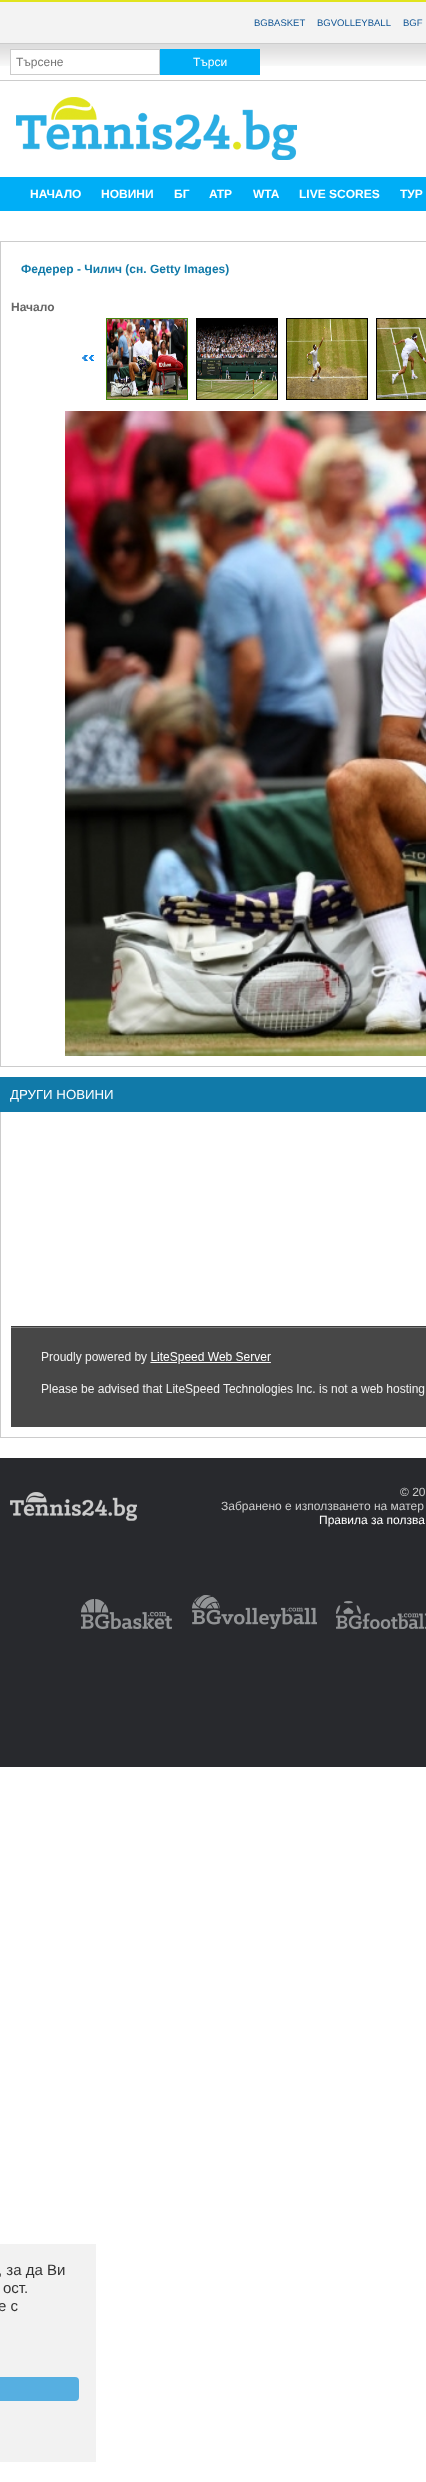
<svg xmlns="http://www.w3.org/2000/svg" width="426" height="2482">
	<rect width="100%" height="100%" fill="#FFFFFF" />
	<rect x="0" y="2" width="426" height="41" fill="#F3F3F3" />
	<rect x="0" y="0" width="426" height="2" fill="#E1E41E" />
	<g font-family="Liberation Sans" font-size="9.5" fill="#115594">
		<text x="254" y="26">BGBASKET</text>
		<text x="317" y="26">BGVOLLEYBALL</text>
		<text x="403" y="26">BGF</text>
	</g>
	<image x="0" y="44" width="426" height="22" href="assets/img1.png" />
	<rect x="0" y="43" width="426" height="1" fill="#CCCCCC" />
	<rect x="0" y="80" width="426" height="1" fill="#CCCCCC" />
	<rect x="11" y="50" width="148" height="16" fill="#FFFFFF" />
	<rect x="10.5" y="49.5" width="149" height="25" fill="none" stroke="#CCCCCC" />
	<text x="16" y="66" font-family="Liberation Sans" font-size="12" fill="#757575">Търсене</text>
	<rect x="160" y="49" width="100" height="26" fill="#00AEF6" />
	<text x="193" y="66" font-family="Liberation Sans" font-size="12" fill="#FFFFFF">Търси</text>
	<image x="16" y="97" width="281" height="63" href="assets/img2.png" />
	<rect x="0" y="177" width="426" height="34" fill="#00AEF6" />
	<g font-family="Liberation Sans" font-size="12" font-weight="700" fill="#FFFFFF">
		<text x="30" y="198">НАЧАЛО</text>
		<text x="101" y="198">НОВИНИ</text>
		<text x="174" y="198">БГ</text>
		<text x="209" y="198">ATP</text>
		<text x="253" y="198">WTA</text>
		<text x="299" y="198">LIVE SCORES</text>
		<text x="400" y="198">ТУР</text>
	</g>
	<rect x="0.5" y="241.5" width="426" height="825" fill="none" stroke="#CCCCCC" />
	<text x="21" y="273" font-family="Liberation Sans" font-size="12" font-weight="700" fill="#117AA9">Федерер - Чилич (сн. Getty Images)</text>
	<text x="11" y="311" font-family="Liberation Sans" font-size="12" font-weight="700" fill="#666666">Начало</text>
	<image x="82" y="355" width="12" height="6" href="assets/img3.png" />
	<rect x="106.5" y="318.5" width="81" height="81" fill="none" stroke="#44840A" />
	<image x="107" y="319" width="80" height="80" href="assets/img4.png" />
	<rect x="196.5" y="318.5" width="81" height="81" fill="none" stroke="#000000" />
	<image x="197" y="319" width="80" height="80" href="assets/img5.png" />
	<rect x="286.5" y="318.5" width="81" height="81" fill="none" stroke="#000000" />
	<image x="287" y="319" width="80" height="80" href="assets/img6.png" />
	<rect x="376.5" y="318.5" width="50" height="81" fill="none" stroke="#000000" />
	<image x="377" y="319" width="49" height="80" href="assets/img7.png" />
	<image x="65" y="411" width="361" height="645" href="assets/img8.png" />
	<rect x="0.5" y="1111.5" width="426" height="326" fill="none" stroke="#CCCCCC" />
	<rect x="0" y="1077" width="426" height="35" fill="#117AA9" />
	<text x="10" y="1099" font-family="Liberation Sans" font-size="13.25" fill="#FFFFFF">ДРУГИ НОВИНИ</text>
	<image x="11" y="1326" width="415" height="101" href="assets/img9.png" />
	<rect x="0" y="1458" width="426" height="309" fill="#28292D" />
	<image x="10" y="1492" width="127" height="29" href="assets/img10.png" />
	<g font-family="Liberation Sans" font-size="12" fill="#CCCCCC">
		<text x="400" y="1496">© 20</text>
		<text x="221" y="1510">Забранено е използването на матер</text>
	</g>
	<text x="319" y="1524" font-family="Liberation Sans" font-size="12" fill="#FFFFFF">Правила за ползва</text>
	<image x="81" y="1599" width="91" height="30" href="assets/img11.png" />
	<image x="192" y="1595" width="125" height="34" href="assets/img12.png" />
	<image x="336" y="1601" width="90" height="28" href="assets/img13.png" />
	<rect x="0" y="2244" width="96" height="218" fill="#F2F2F2" />
	<g font-family="Liberation Sans" font-size="15" fill="#333333">
		<text x="-2" y="2275">, за да Ви</text>
		<text x="3" y="2293">ост.</text>
		<text x="-2" y="2311">е с</text>
	</g>
	<rect x="-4" y="2377" width="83" height="24" rx="4" fill="#56AFE1" />
</svg>
